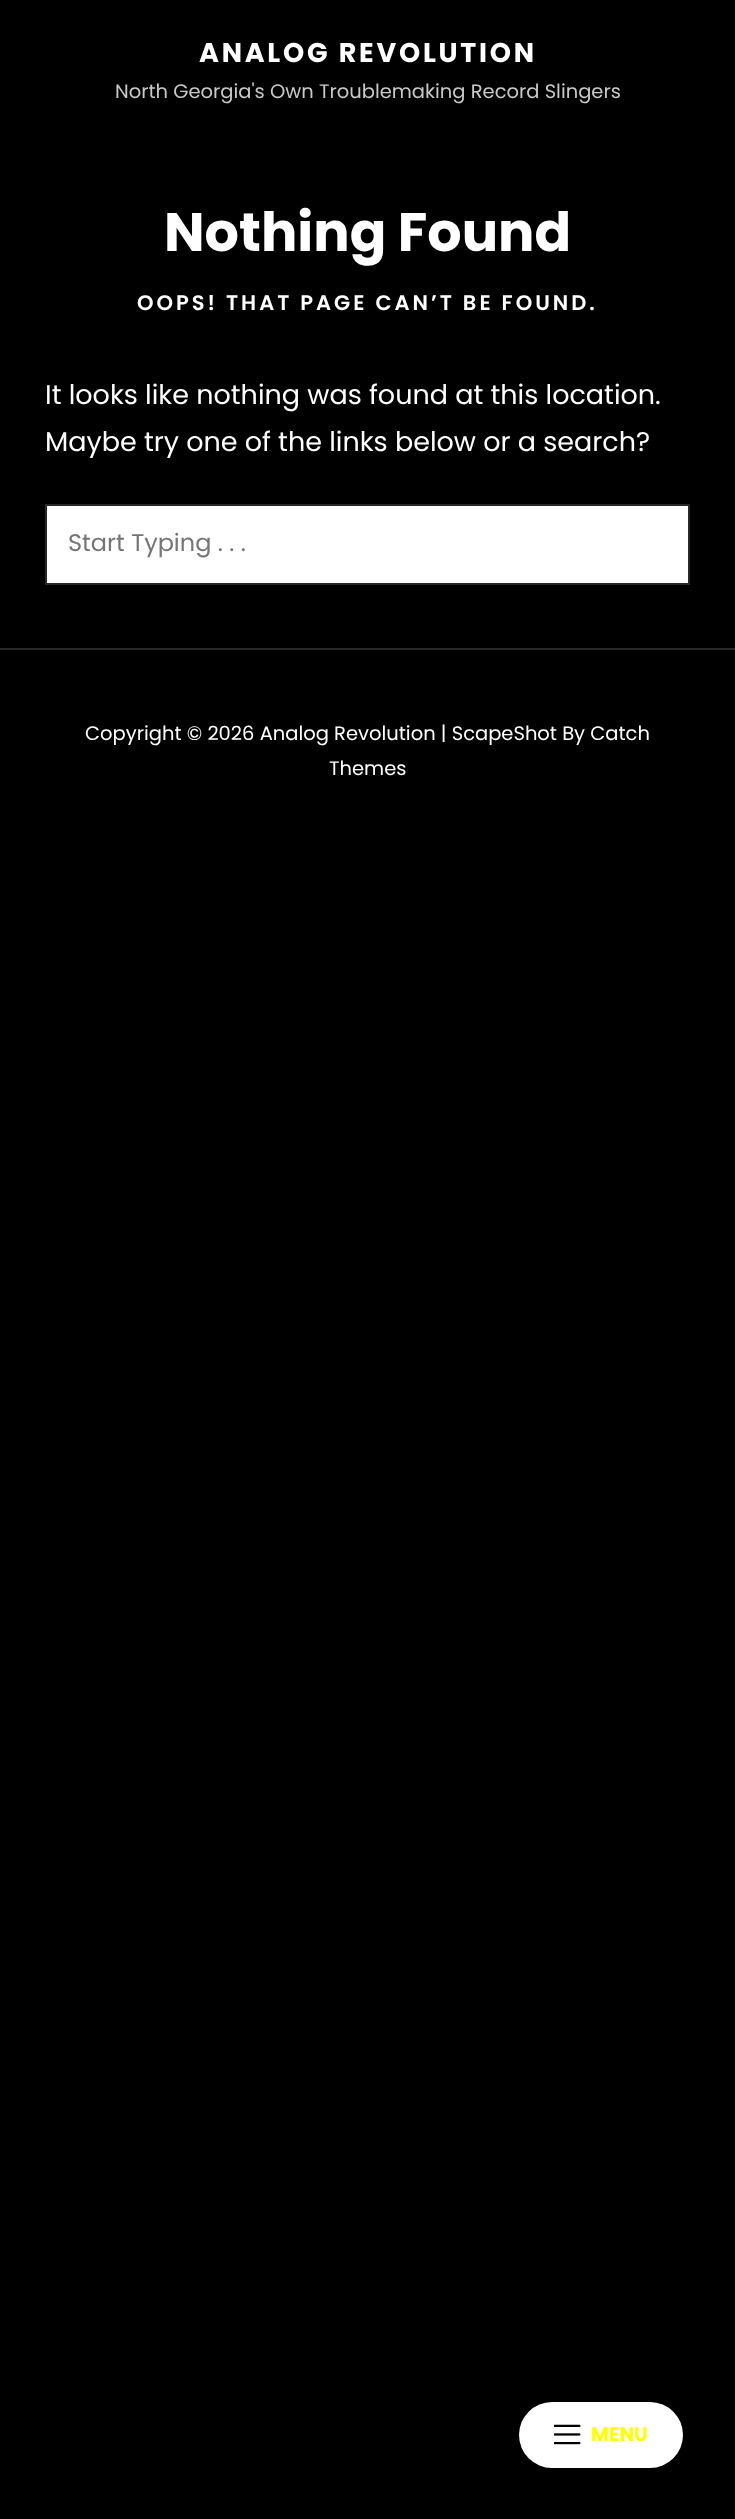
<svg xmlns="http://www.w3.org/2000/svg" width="735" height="2519">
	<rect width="100%" height="100%" fill="#000000" />
	<text x="199" y="62" font-family="Poppins" font-size="27" font-weight="700" letter-spacing="2.75" fill="#FFFFFF">ANALOG REVOLUTION</text>
	<text x="115" y="98" font-family="Poppins" font-size="19.5" fill="#C9C9C9">North Georgia's Own Troublemaking Record Slingers</text>
	<rect x="519" y="2402" width="164" height="66" rx="33" fill="#FFFFFF" />
	<image x="554" y="2424" width="27" height="21" href="assets/img1.png" />
	<text x="591" y="2441" font-family="Poppins" font-size="19.5" font-weight="700" fill="#FFFF00">MENU</text>
	<text x="164" y="251" font-family="Poppins" font-size="54" font-weight="700" fill="#FFFFFF">Nothing Found</text>
	<text x="137" y="310" font-family="Poppins" font-size="21" font-weight="600" letter-spacing="3" fill="#FFFFFF">OOPS! THAT PAGE CAN’T BE FOUND.</text>
	<g font-family="Poppins" font-size="27" fill="#FFFFFF">
		<text x="45" y="404">It looks like nothing was found at this location.</text>
		<text x="45" y="451">Maybe try one of the links below or a search?</text>
	</g>
	<rect x="46" y="505" width="643" height="79" fill="#FFFFFF" stroke="#282828" stroke-width="2" />
	<text x="68" y="551" font-family="Poppins" font-size="24" fill="#757575">Start Typing . . .</text>
	<rect x="0" y="648" width="735" height="2" fill="#282828" />
	<g font-family="Poppins" font-size="19.5" fill="#FFFFFF">
		<text x="85" y="740">Copyright © 2026 Analog Revolution | ScapeShot By Catch</text>
		<text x="329" y="775">Themes</text>
	</g>
</svg>
